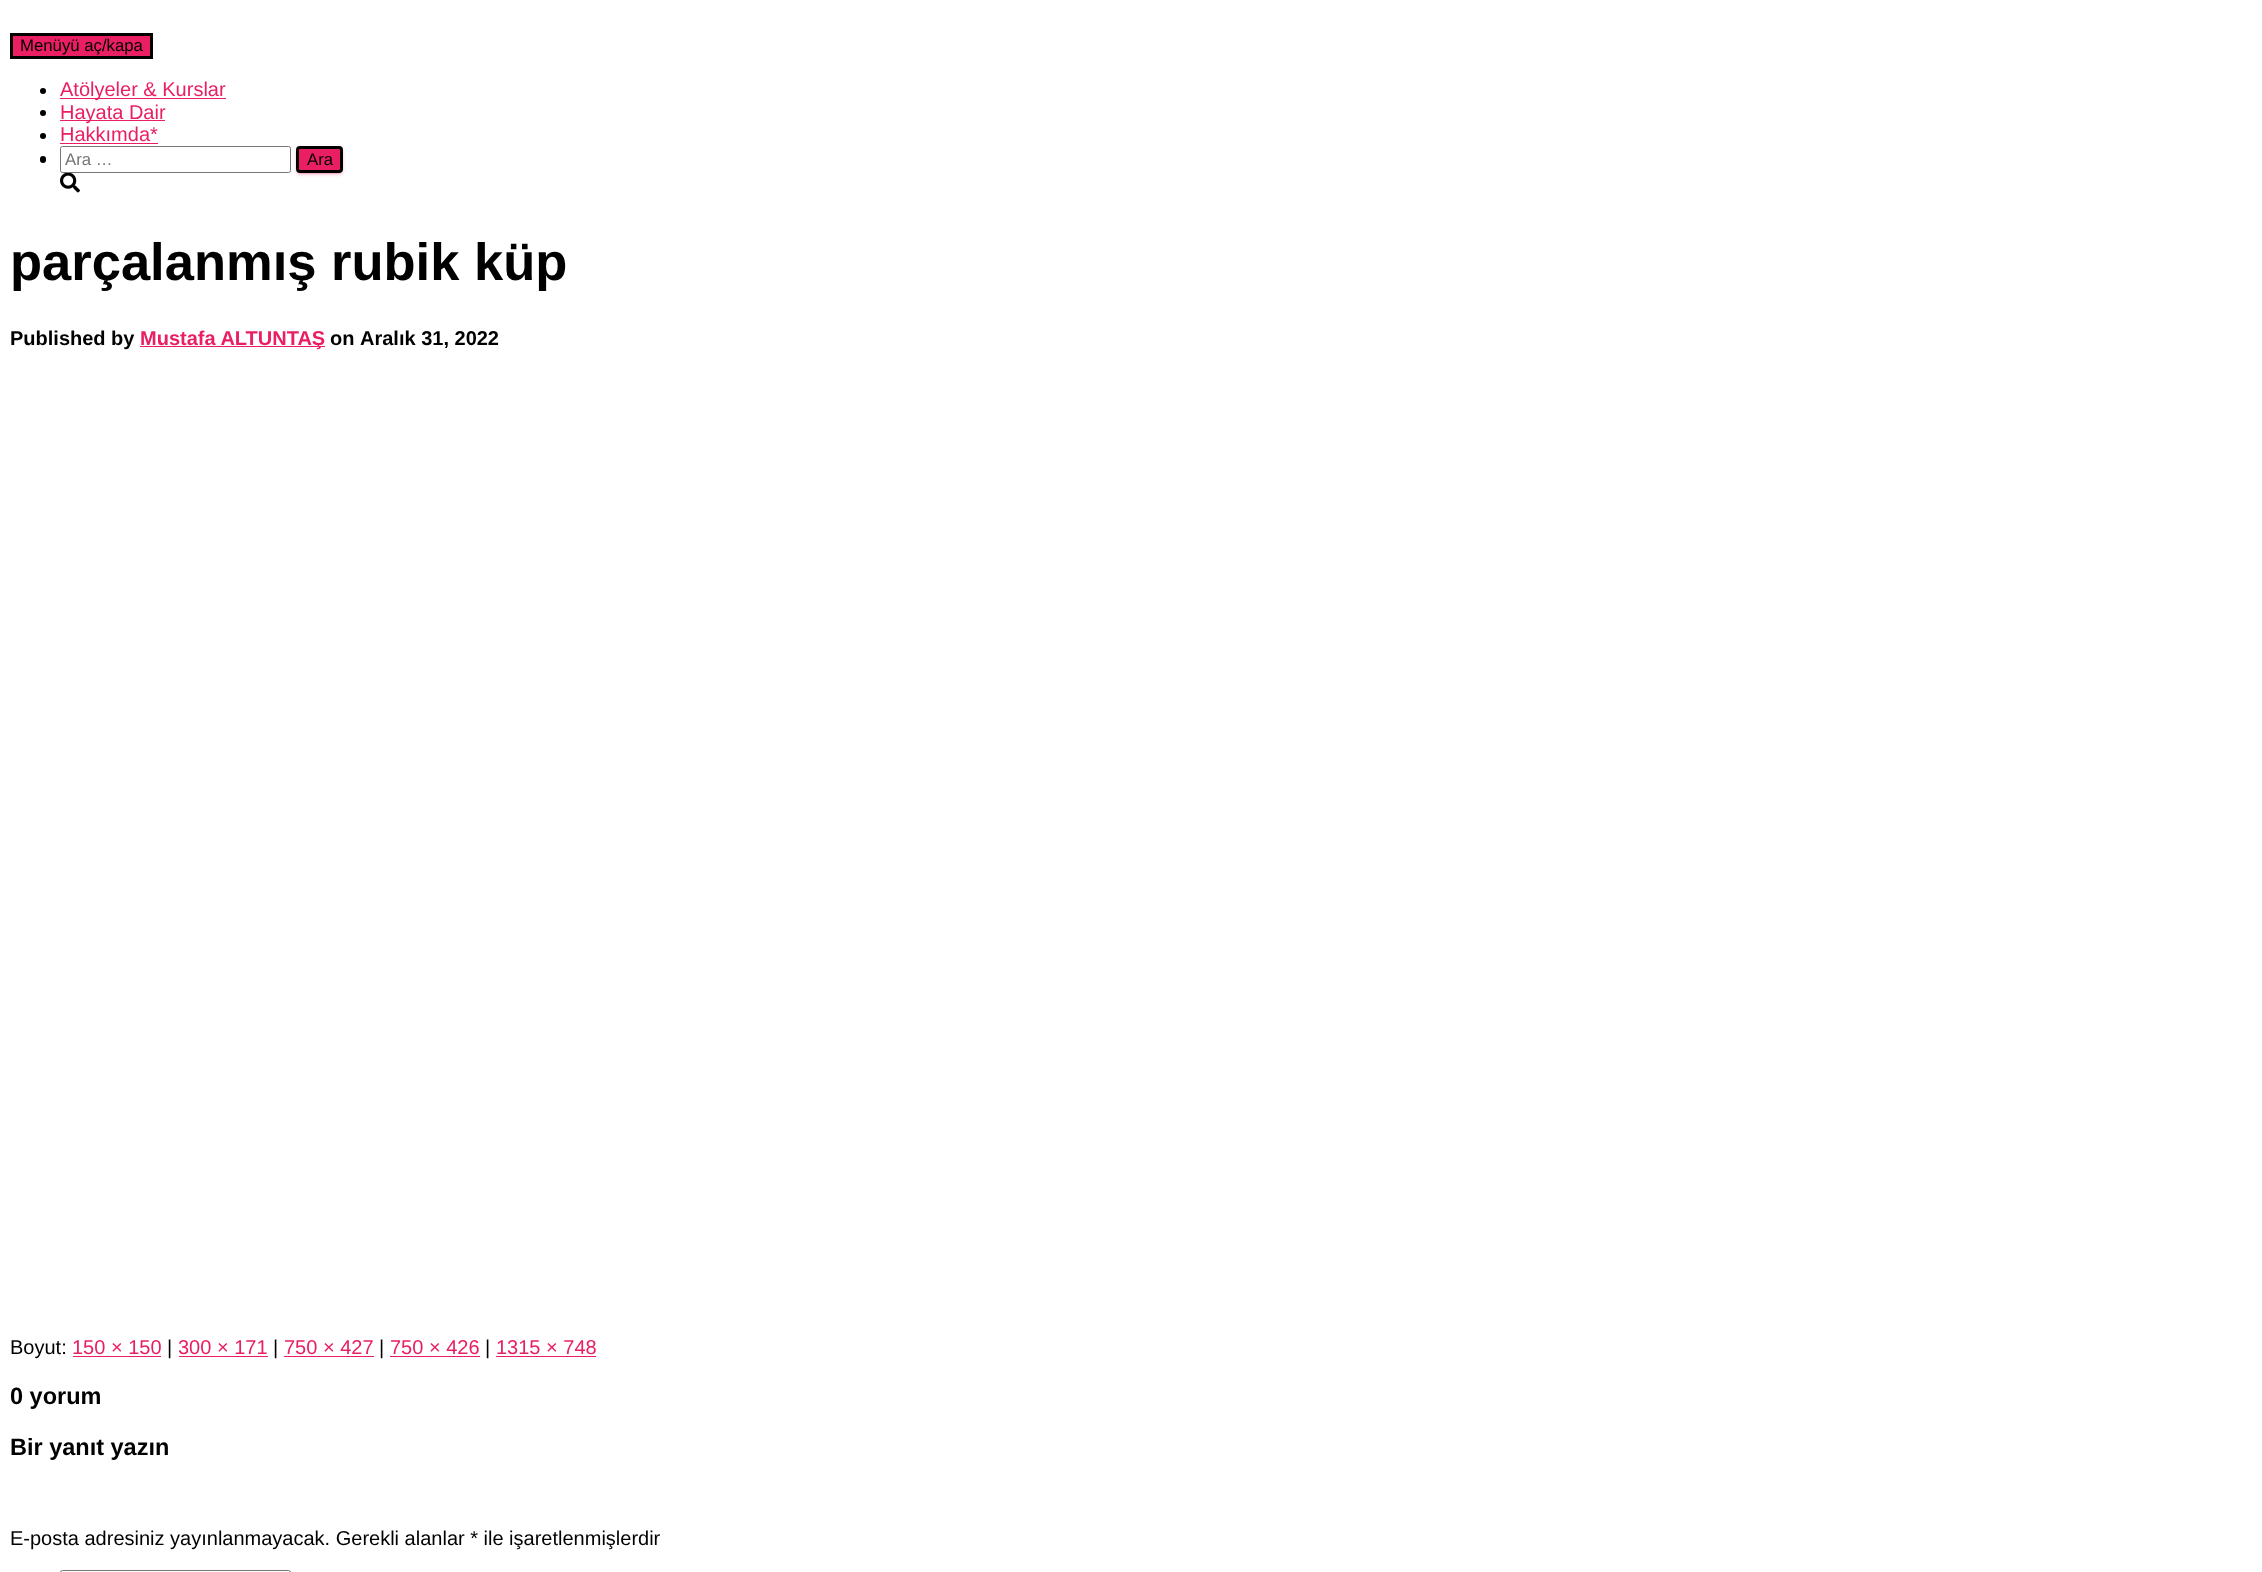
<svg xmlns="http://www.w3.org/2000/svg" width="2262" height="1572">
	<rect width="100%" height="100%" fill="#FFFFFF" />
	<rect x="11.5" y="34.5" width="140" height="23" fill="#E91E63" stroke="#000000" stroke-width="3" />
	<text x="20" y="51" font-family="Liberation Sans" font-size="16.75" fill="#000000">Menüyü aç/kapa</text>
	<circle cx="43" cy="91" r="3" fill="#000000" />
	<rect x="60" y="98" width="166" height="1" fill="#E91E63" />
	<text x="60" y="96" font-family="Liberation Sans" font-size="20" fill="#E91E63">Atölyeler &amp; Kurslar</text>
	<circle cx="43" cy="113" r="3" fill="#000000" />
	<rect x="60" y="120" width="105" height="1" fill="#E91E63" />
	<text x="60" y="119" font-family="Liberation Sans" font-size="20" fill="#E91E63">Hayata Dair</text>
	<circle cx="43" cy="136" r="3" fill="#000000" />
	<text x="60" y="141" font-family="Liberation Sans" font-size="20" fill="#E91E63">Hakkımda*</text>
	<rect x="60" y="143" width="98" height="1" fill="#E91E63" />
	<rect x="40" y="156" width="6" height="7" rx="3" fill="#000000" />
	<rect x="60.5" y="146.5" width="230" height="26" rx="2" fill="none" stroke="#767676" />
	<text x="65" y="165" font-family="Liberation Sans" font-size="16.75" fill="#757575">Ara …</text>
	<rect x="296" y="148" width="47" height="26" rx="4" fill="#E91E63" fill-opacity="0.12" filter="blur(3px)" />
	<rect x="299" y="153" width="41" height="21" rx="1" fill="#E91E63" fill-opacity="0.2" filter="blur(0.5px)" />
	<rect x="296" y="149" width="47" height="26" rx="4" fill="#E91E63" fill-opacity="0.14" filter="blur(1px)" />
	<rect x="297.5" y="147.5" width="44" height="24" rx="2.5" fill="#E91E63" stroke="#000000" stroke-width="3" />
	<text x="307" y="165" font-family="Liberation Sans" font-size="16.75" fill="#000000">Ara</text>
	<image x="60" y="173" width="20" height="20" href="assets/img1.png" />
	<text x="10" y="280" font-family="Liberation Sans" font-size="52.5" font-weight="700" fill="#000000">parçalanmış rubik küp</text>
	<text x="10" y="345" font-family="Liberation Sans" font-size="20" font-weight="700" fill="#000000">Published by</text>
	<rect x="140" y="346" width="185" height="1" fill="#E91E63" />
	<text x="140" y="345" font-family="Liberation Sans" font-size="20" font-weight="700" fill="#E91E63">Mustafa ALTUNTAŞ</text>
	<g font-family="Liberation Sans" font-size="20" font-weight="700" fill="#000000">
		<text x="330" y="345">on</text>
		<text x="360" y="345">Aralık 31, 2022</text>
	</g>
	<text x="10" y="1354" font-family="Liberation Sans" font-size="20" fill="#000000">Boyut:</text>
	<text x="72" y="1354" font-family="Liberation Sans" font-size="20" fill="#E91E63">150 × 150</text>
	<rect x="73" y="1356" width="88" height="1" fill="#E91E63" />
	<text x="167" y="1354" font-family="Liberation Sans" font-size="20" fill="#000000">|</text>
	<text x="178" y="1354" font-family="Liberation Sans" font-size="20" fill="#E91E63">300 × 171</text>
	<rect x="179" y="1356" width="89" height="1" fill="#E91E63" />
	<text x="273" y="1354" font-family="Liberation Sans" font-size="20" fill="#000000">|</text>
	<text x="284" y="1354" font-family="Liberation Sans" font-size="20" fill="#E91E63">750 × 427</text>
	<rect x="284" y="1356" width="90" height="1" fill="#E91E63" />
	<text x="379" y="1354" font-family="Liberation Sans" font-size="20" fill="#000000">|</text>
	<text x="390" y="1354" font-family="Liberation Sans" font-size="20" fill="#E91E63">750 × 426</text>
	<rect x="390" y="1356" width="90" height="1" fill="#E91E63" />
	<text x="485" y="1354" font-family="Liberation Sans" font-size="20" fill="#000000">|</text>
	<text x="496" y="1354" font-family="Liberation Sans" font-size="20" fill="#E91E63">1315 × 748</text>
	<rect x="496" y="1356" width="100" height="1" fill="#E91E63" />
	<g font-family="Liberation Sans" font-size="23.5" font-weight="700" fill="#000000">
		<text x="10" y="1404">0 yorum</text>
		<text x="10" y="1455">Bir yanıt yazın</text>
	</g>
	<text x="10" y="1545" font-family="Liberation Sans" font-size="20" fill="#000000">E-posta adresiniz yayınlanmayacak. Gerekli alanlar * ile işaretlenmişlerdir</text>
	<rect x="60.5" y="1570.5" width="230" height="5" rx="2" fill="none" stroke="#767676" />
</svg>
